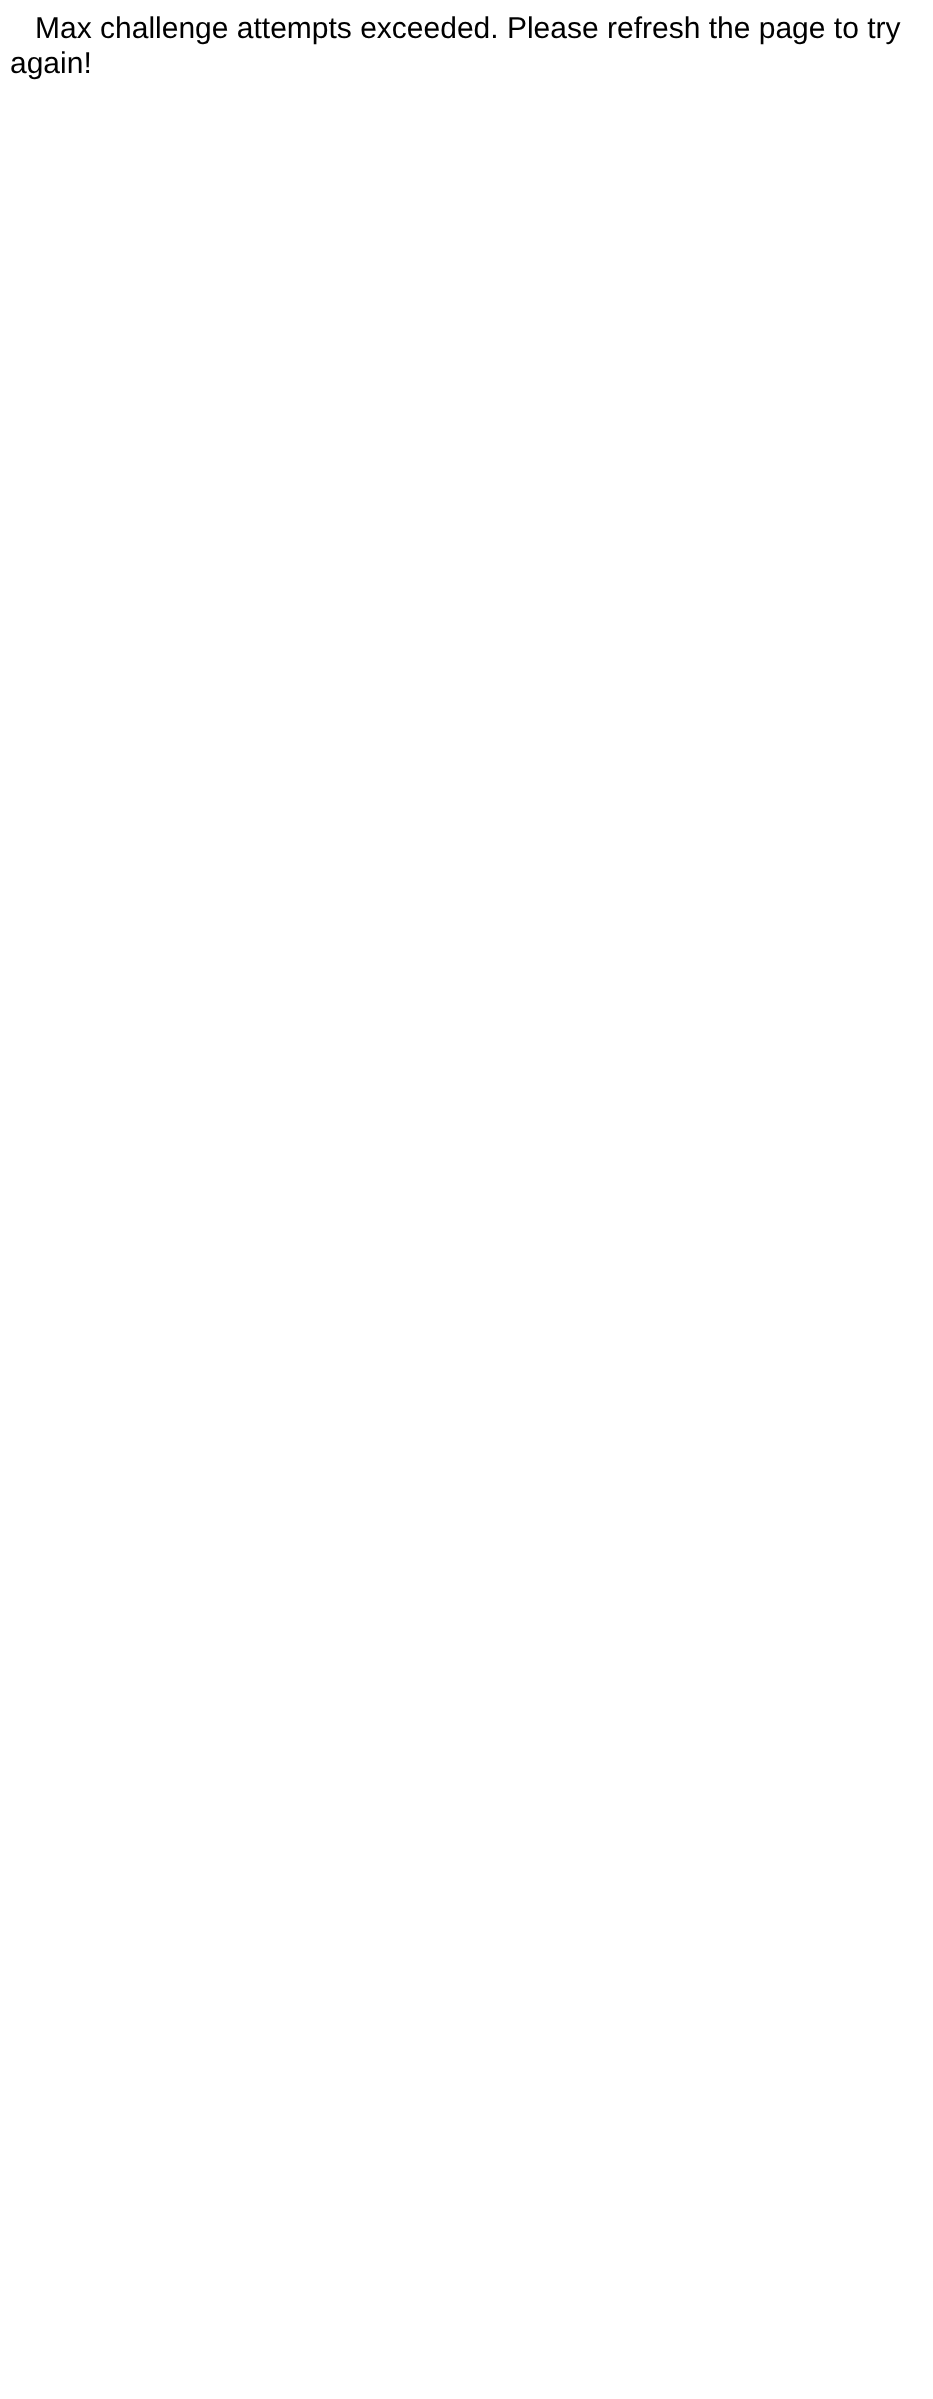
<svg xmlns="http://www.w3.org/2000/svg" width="933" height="2399">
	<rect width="100%" height="100%" fill="#FFFFFF" />
	<g font-family="Liberation Sans" font-size="30" fill="#000000">
		<text x="35" y="38">Max challenge attempts exceeded. Please refresh the page to try</text>
		<text x="10" y="73">again!</text>
	</g>
</svg>
